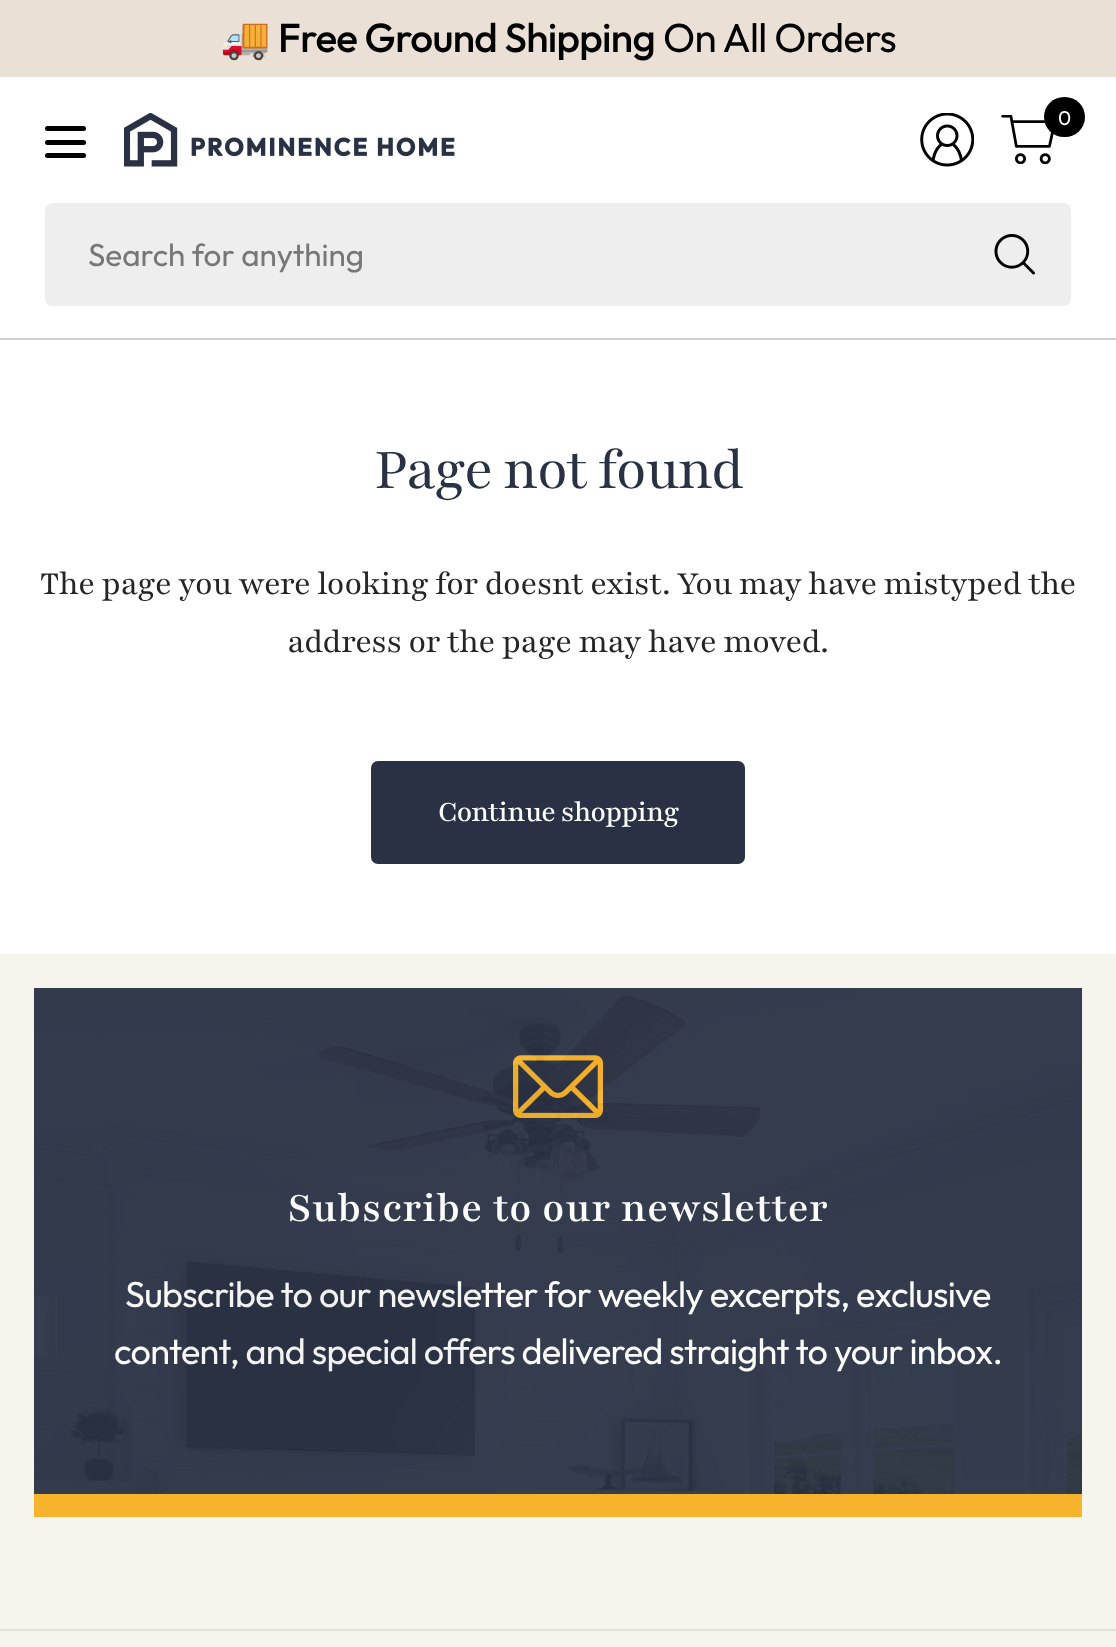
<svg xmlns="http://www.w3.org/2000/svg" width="1116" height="1647">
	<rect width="100%" height="100%" fill="#FFFFFF" />
	<rect x="0" y="0" width="1116" height="77" fill="#EAE0D5" />
	<text x="220" y="52" font-family="Noto Color Emoji" font-size="40.5" letter-spacing="-0.72" fill="#000000">🚚</text>
	<text x="278" y="52" font-family="Outfit" font-size="40.5" font-weight="500" letter-spacing="-0.72" fill="#000000">Free Ground Shipping</text>
	<text x="663" y="52" font-family="Outfit" font-size="40.5" font-weight="100" letter-spacing="-0.72" fill="#000000">On All Orders</text>
	<rect x="45" y="126" width="41" height="5" rx="2.5" fill="#000000" />
	<rect x="45" y="140" width="41" height="5" rx="2.5" fill="#000000" />
	<rect x="45" y="153" width="41" height="5" rx="2.5" fill="#000000" />
	<image x="124" y="113" width="331" height="54" href="assets/img1.png" />
	<image x="920" y="113" width="54" height="54" href="assets/img2.png" />
	<image x="1001" y="115" width="53" height="49" href="assets/img3.png" />
	<rect x="1044" y="97" width="41" height="40" rx="20" fill="#000000" />
	<text x="1058" y="125" font-family="Outfit" font-size="20" font-weight="100" letter-spacing="-0.72" fill="#FFFFFF">0</text>
	<rect x="45" y="203" width="1026" height="103" rx="7" fill="#EEEEEE" />
	<text x="88" y="266" font-family="Outfit" font-size="31.5" font-weight="100" fill="#777777">Search for anything</text>
	<image x="994" y="234" width="41" height="41" href="assets/img4.png" />
	<rect x="0" y="338" width="1116" height="2" fill="#CFCFCF" />
	<text x="374" y="488" font-family="'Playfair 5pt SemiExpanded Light'" font-size="63" letter-spacing="-1.9" fill="#2A3145">Page not found</text>
	<g font-family="'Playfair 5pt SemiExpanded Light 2'" font-size="36" letter-spacing="-0.72" fill="#252525">
		<text x="40" y="594">The page you were looking for doesnt exist. You may have mistyped the</text>
		<text x="287" y="652">address or the page may have moved.</text>
	</g>
	<rect x="371" y="761" width="374" height="103" rx="7" fill="#2A3145" />
	<text x="438" y="821" font-family="'Playfair 5pt SemiExpanded Light'" font-size="31.5" font-weight="500" letter-spacing="-0.9" fill="#FFFFFF">Continue shopping</text>
	<rect x="0" y="954" width="1116" height="675" fill="#F7F4EE" />
	<rect x="34" y="988" width="1048" height="506" fill="#2A3145" />
	<image x="513" y="1055" width="90" height="63" href="assets/img6.png" />
	<text x="288" y="1221" font-family="'Playfair 5pt SemiExpanded Light'" font-size="45" font-weight="600" letter-spacing="0.7" fill="#FFFFFF">Subscribe to our newsletter</text>
	<g font-family="Outfit" font-size="36" font-weight="100" letter-spacing="-0.72" fill="#FFFFFF">
		<text x="125" y="1307">Subscribe to our newsletter for weekly excerpts, exclusive</text>
		<text x="114" y="1364">content, and special offers delivered straight to your inbox.</text>
	</g>
	<image x="34" y="988" width="1048" height="506" href="assets/img5.png" />
	<rect x="34" y="1494" width="1048" height="23" fill="#F7B32B" />
	<rect x="0" y="1629" width="1116" height="2" fill="#E2DFDA" />
	<rect x="0" y="1631" width="1116" height="16" fill="#F7F4EE" />
</svg>
